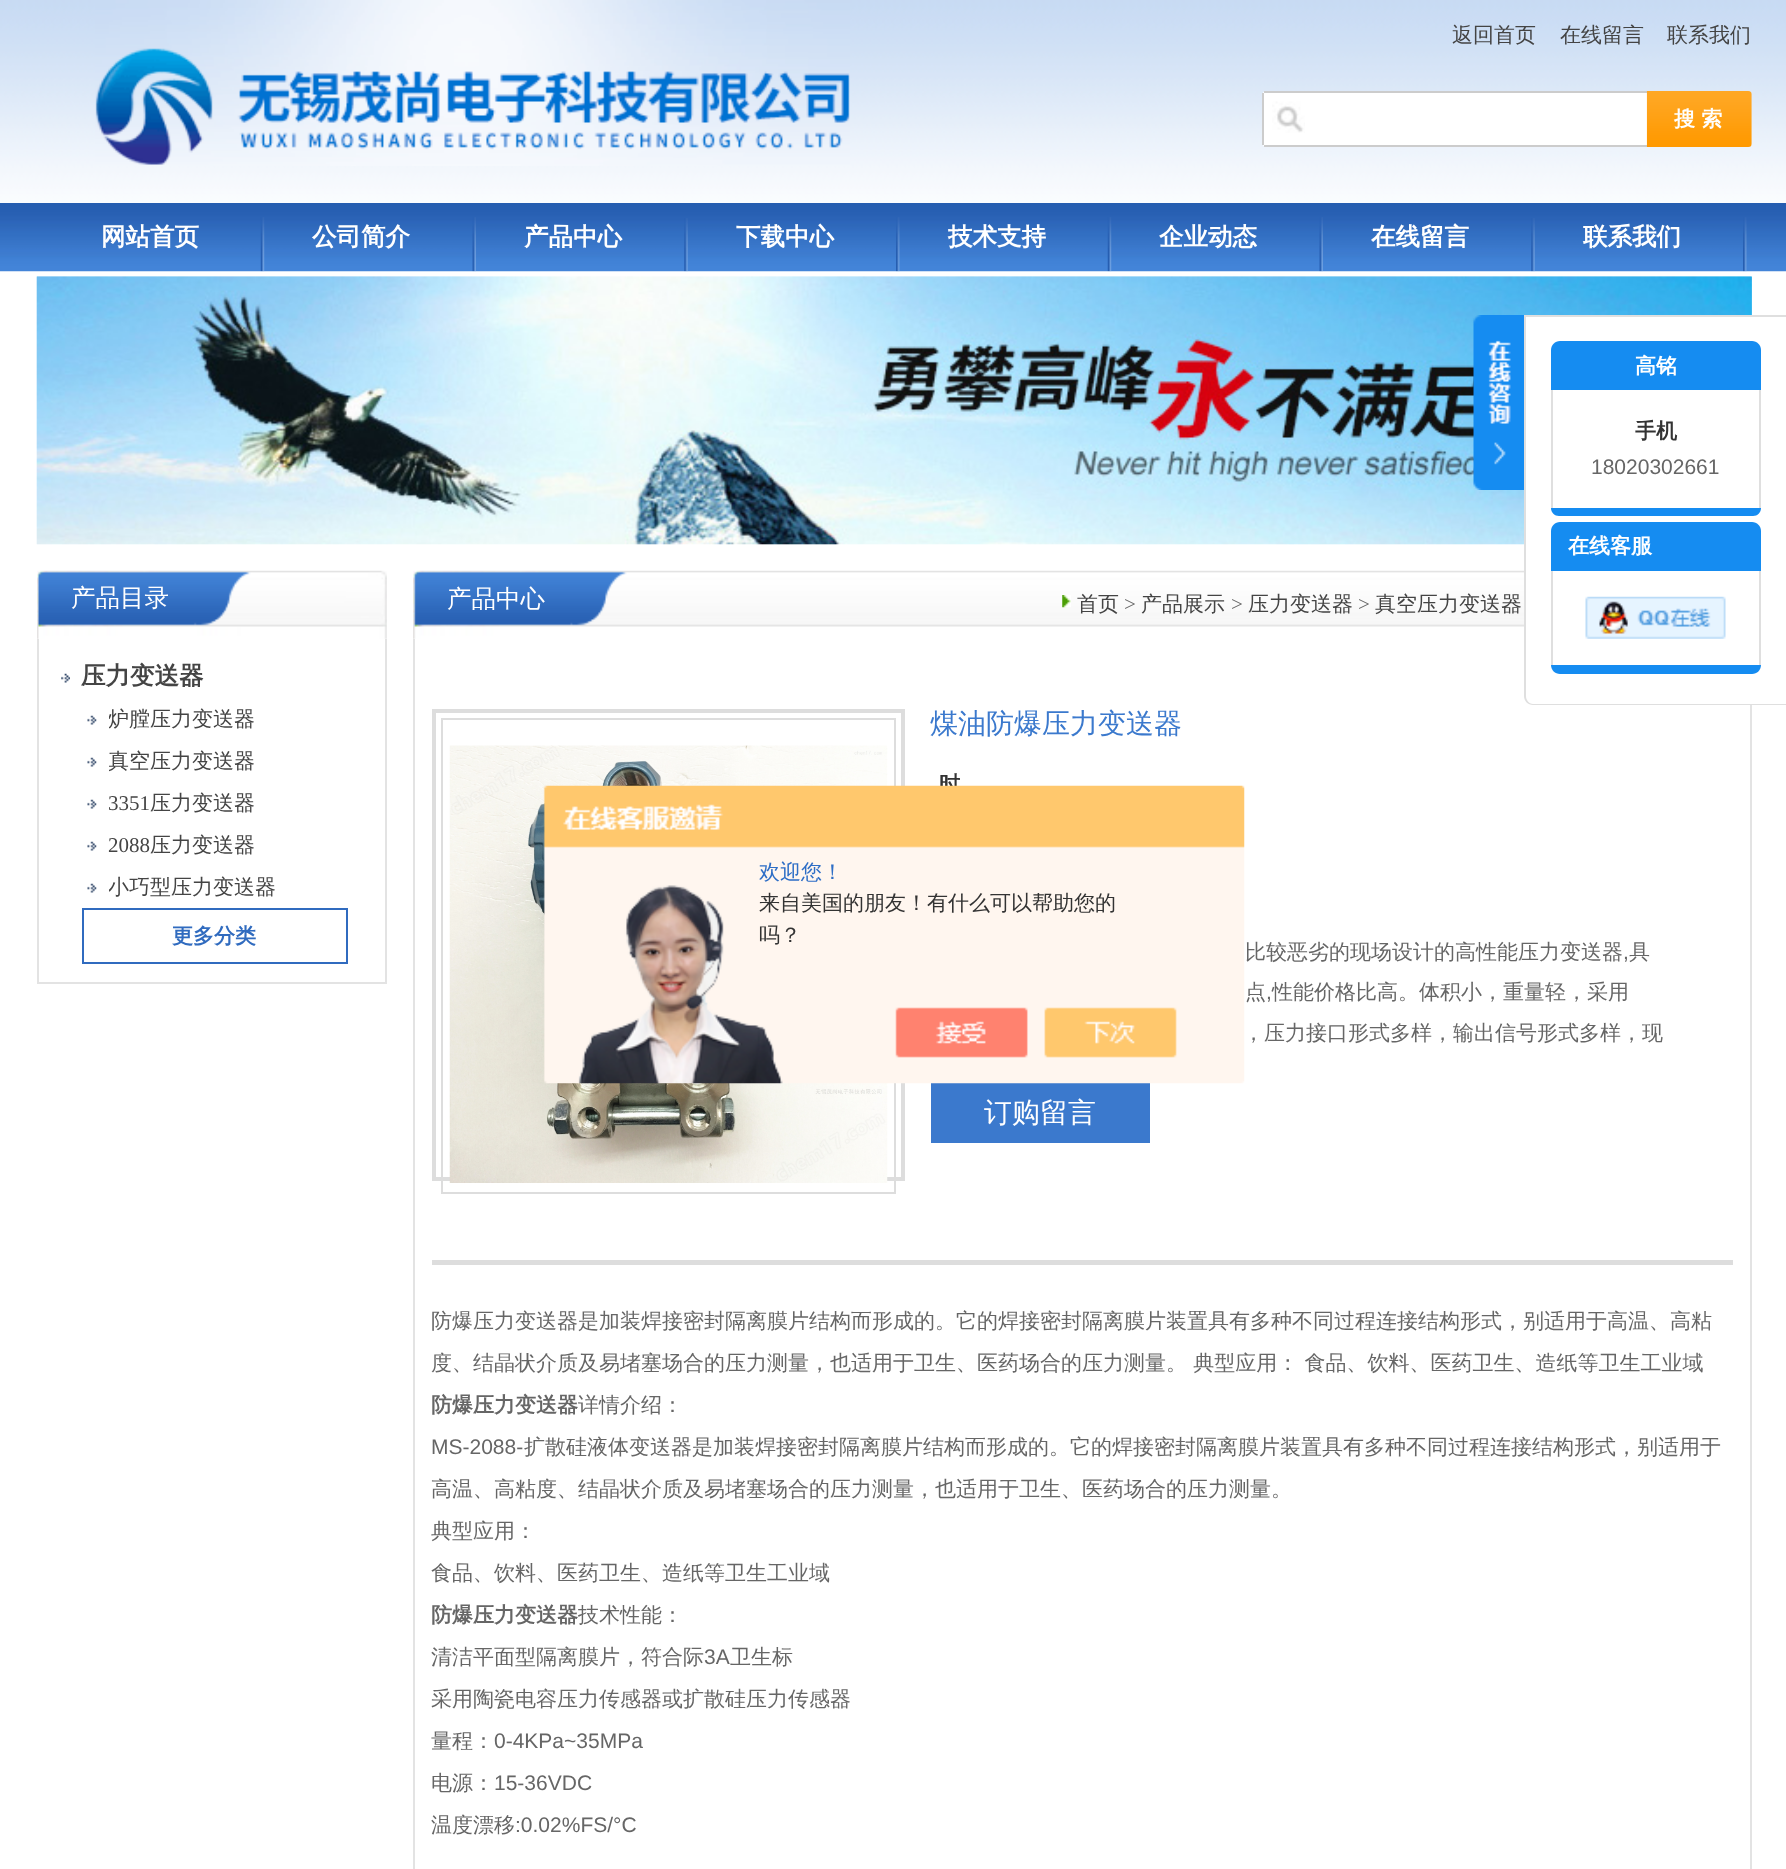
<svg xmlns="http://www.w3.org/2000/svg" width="1786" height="1869">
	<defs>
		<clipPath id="clip1"><rect x="109" y="698" width="262" height="42" /></clipPath>
		<clipPath id="clip2"><rect x="109" y="740" width="262" height="42" /></clipPath>
		<clipPath id="clip3"><rect x="109" y="782" width="262" height="42" /></clipPath>
		<clipPath id="clip4"><rect x="109" y="866" width="262" height="42" /></clipPath>
	</defs>
	<rect width="100%" height="100%" fill="#FFFFFF" />
	<image x="0" y="0" width="1786" height="203" href="assets/img1.png" />
	<image x="95" y="0" width="755" height="166" href="assets/img2.png" />
	<g font-family="WenQuanYi Zen Hei" font-size="21" font-weight="500" fill="#444444">
		<text x="1452" y="42">返回首页</text>
		<text x="1560" y="42">在线留言</text>
		<text x="1667" y="42">联系我们</text>
	</g>
	<path d="M1266 91H1647V147H1266C1264 147 1262 145 1262 143V95C1262 93 1264 91 1266 91Z" fill="#FFFFFF" />
	<image x="1272" y="101" width="33" height="32" href="assets/img3.png" />
	<rect x="1264" y="91" width="383" height="2" fill="#CCCCCC" />
	<rect x="1264" y="145" width="383" height="2" fill="#CCCCCC" />
	<rect x="1262" y="93" width="2" height="52" fill="#CCCCCC" />
	<image x="1646" y="91" width="106" height="56" href="assets/img4.png" />
	<text x="1674" y="126" font-family="WenQuanYi Zen Hei" font-size="21" font-weight="700" fill="#FFFFFF">搜 索</text>
	<image x="0" y="203" width="1786" height="69" href="assets/img5.png" />
	<image x="260" y="217" width="5" height="55" href="assets/img6.png" />
	<text x="101" y="245" font-family="WenQuanYi Zen Hei" font-size="24.5" font-weight="700" fill="#FFFFFF">网站首页</text>
	<image x="472" y="217" width="4" height="55" href="assets/img7.png" />
	<text x="312" y="245" font-family="WenQuanYi Zen Hei" font-size="24.5" font-weight="700" fill="#FFFFFF">公司简介</text>
	<image x="684" y="218" width="4" height="54" href="assets/img8.png" />
	<text x="524" y="245" font-family="WenQuanYi Zen Hei" font-size="24.5" font-weight="700" fill="#FFFFFF">产品中心</text>
	<image x="896" y="217" width="4" height="55" href="assets/img9.png" />
	<text x="736" y="245" font-family="WenQuanYi Zen Hei" font-size="24.5" font-weight="700" fill="#FFFFFF">下载中心</text>
	<image x="1107" y="217" width="5" height="55" href="assets/img10.png" />
	<text x="948" y="245" font-family="WenQuanYi Zen Hei" font-size="24.5" font-weight="700" fill="#FFFFFF">技术支持</text>
	<image x="1319" y="217" width="4" height="55" href="assets/img11.png" />
	<text x="1159" y="245" font-family="WenQuanYi Zen Hei" font-size="24.5" font-weight="700" fill="#FFFFFF">企业动态</text>
	<image x="1531" y="218" width="4" height="54" href="assets/img8.png" />
	<text x="1371" y="245" font-family="WenQuanYi Zen Hei" font-size="24.5" font-weight="700" fill="#FFFFFF">在线留言</text>
	<image x="1743" y="217" width="4" height="55" href="assets/img12.png" />
	<text x="1583" y="245" font-family="WenQuanYi Zen Hei" font-size="24.5" font-weight="700" fill="#FFFFFF">联系我们</text>
	<image x="36" y="276" width="1716" height="269" href="assets/img13.png" />
	<image x="36" y="276" width="1716" height="269" href="assets/img14.png" />
	<image x="1473" y="315" width="51" height="175" href="assets/img15.png" />
	<path d="M1524 315H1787V705H1533C1528 705 1524 701 1524 696Z" fill="#FFFFFF" />
	<path d="M1524 315H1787V705H1533C1528 705 1524 701 1524 696ZM1526 317H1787V704H1533C1529 704 1526 700 1526 696Z" fill="#DFDFDF" fill-rule="evenodd" />
	<path d="M1560 341H1752C1757 341 1761 345 1761 350V390H1551V350C1551 345 1555 341 1560 341Z" fill="#158CF1" />
	<text x="1635" y="373" font-family="WenQuanYi Zen Hei" font-size="21" font-weight="700" fill="#FFFFFF">高铭</text>
	<rect x="1759" y="390" width="2" height="118" fill="#DFDFDF" />
	<rect x="1551" y="390" width="2" height="118" fill="#DFDFDF" />
	<text x="1635" y="438" font-family="WenQuanYi Zen Hei" font-size="21" font-weight="700" fill="#333333">手机</text>
	<text x="1591" y="474" font-family="Liberation Sans" font-size="21" fill="#666666">18020302661</text>
	<path d="M1551 508H1761C1761 512.5 1757.5 516 1753 516H1559C1554.5 516 1551 512.5 1551 508Z" fill="#158CF1" />
	<path d="M1560 522H1752C1757 522 1761 526 1761 531V571H1551V531C1551 526 1555 522 1560 522Z" fill="#158CF1" />
	<text x="1568" y="553" font-family="WenQuanYi Zen Hei" font-size="21" font-weight="700" fill="#FFFFFF">在线客服</text>
	<rect x="1759" y="571" width="2" height="94" fill="#DFDFDF" />
	<rect x="1551" y="571" width="2" height="94" fill="#DFDFDF" />
	<image x="1585" y="596" width="141" height="43" href="assets/img16.png" />
	<path d="M1551 665H1761C1761 670 1757 674 1752 674H1560C1555 674 1551 670 1551 665Z" fill="#158CF1" />
	<image x="37" y="570" width="350" height="69" href="assets/img17.png" />
	<text x="71" y="606" font-family="WenQuanYi Zen Hei" font-size="24.5" font-weight="500" fill="#FFFFFF">产品目录</text>
	<rect x="385" y="639" width="2" height="345" fill="#E3E3E3" />
	<rect x="37" y="982" width="350" height="2" fill="#E3E3E3" />
	<rect x="37" y="639" width="2" height="345" fill="#E3E3E3" />
	<image x="61" y="673" width="9" height="10" href="assets/img18.png" />
	<text x="81" y="684" font-family="WenQuanYi Zen Hei" font-size="24.5" font-weight="700" fill="#444444">压力变送器</text>
	<image x="87" y="715" width="10" height="10" href="assets/img19.png" />
	<g clip-path="url(#clip1)">
		<text x="108" y="726" font-family="WenQuanYi Zen Hei" font-size="21" font-weight="500" fill="#444444">炉膛压力变送器</text>
	</g>
	<image x="87" y="757" width="10" height="10" href="assets/img19.png" />
	<g clip-path="url(#clip2)">
		<text x="108" y="768" font-family="WenQuanYi Zen Hei" font-size="21" font-weight="500" fill="#444444">真空压力变送器</text>
	</g>
	<image x="87" y="799" width="10" height="10" href="assets/img19.png" />
	<g clip-path="url(#clip3)">
		<text x="108" y="810" font-family="Liberation Serif" font-size="21" fill="#444444">3351</text>
	</g>
	<text x="150" y="810" font-family="WenQuanYi Zen Hei" font-size="21" font-weight="500" fill="#444444">压力变送器</text>
	<image x="87" y="841" width="10" height="10" href="assets/img19.png" />
	<text x="108" y="852" font-family="Liberation Serif" font-size="21" fill="#444444">2088</text>
	<text x="150" y="852" font-family="WenQuanYi Zen Hei" font-size="21" font-weight="500" fill="#444444">压力变送器</text>
	<image x="87" y="883" width="10" height="10" href="assets/img19.png" />
	<g clip-path="url(#clip4)">
		<text x="108" y="894" font-family="WenQuanYi Zen Hei" font-size="21" font-weight="500" fill="#444444">小巧型压力变送器</text>
	</g>
	<rect x="83" y="909" width="264" height="54" fill="none" stroke="#306BBF" stroke-width="2" />
	<text x="172" y="943" font-family="WenQuanYi Zen Hei" font-size="21" font-weight="700" fill="#306BBF">更多分类</text>
	<image x="413" y="570" width="1111" height="69" href="assets/img20.png" />
	<text x="447" y="607" font-family="WenQuanYi Zen Hei" font-size="24.5" font-weight="500" fill="#FFFFFF">产品中心</text>
	<image x="1062" y="595" width="9" height="13" href="assets/img21.png" />
	<text x="1077" y="611" font-family="WenQuanYi Zen Hei" font-size="21" font-weight="500" fill="#444444">首页</text>
	<text x="1124" y="611" font-family="Liberation Serif" font-size="21" fill="#666666">&gt;</text>
	<text x="1141" y="611" font-family="WenQuanYi Zen Hei" font-size="21" font-weight="500" fill="#444444">产品展示</text>
	<text x="1231" y="611" font-family="Liberation Serif" font-size="21" fill="#666666">&gt;</text>
	<text x="1248" y="611" font-family="WenQuanYi Zen Hei" font-size="21" font-weight="500" fill="#444444">压力变送器</text>
	<text x="1358" y="611" font-family="Liberation Serif" font-size="21" fill="#666666">&gt;</text>
	<text x="1375" y="611" font-family="WenQuanYi Zen Hei" font-size="21" font-weight="500" fill="#444444">真空压力变送器</text>
	<rect x="1750" y="705" width="2" height="1164" fill="#E3E3E3" />
	<rect x="413" y="639" width="2" height="1230" fill="#E3E3E3" />
	<rect x="432" y="1260" width="1301" height="5" fill="#DDDDDD" />
	<rect x="434" y="711" width="469" height="468" fill="none" stroke="#DDDDDD" stroke-width="4" />
	<rect x="442" y="719" width="453" height="474" fill="none" stroke="#DDDDDD" stroke-width="2" />
	<image x="449" y="745" width="439" height="438" href="assets/img22.png" />
	<text x="930" y="733" font-family="WenQuanYi Zen Hei" font-size="28" font-weight="500" fill="#3B79CD">煤油防爆压力变送器</text>
	<text x="939" y="791" font-family="WenQuanYi Zen Hei" font-size="21" font-weight="700" fill="#333333">时</text>
	<text x="1245" y="959" font-family="WenQuanYi Zen Hei" font-size="21" font-weight="500" fill="#666666">比较恶劣的现场设计的高性能压力变送器</text>
	<text x="1623" y="959" font-family="Liberation Sans" font-size="21" fill="#666666">,</text>
	<g font-family="WenQuanYi Zen Hei" font-size="21" font-weight="500" fill="#666666">
		<text x="1629" y="959">具</text>
		<text x="1245" y="999">点</text>
	</g>
	<text x="1266" y="999" font-family="Liberation Sans" font-size="21" fill="#666666">,</text>
	<g font-family="WenQuanYi Zen Hei" font-size="21" font-weight="500" fill="#666666">
		<text x="1272" y="999">性能价格比高。体积小，重量轻，采用</text>
		<text x="1243" y="1040">，压力接口形式多样，输出信号形式多样，现</text>
	</g>
	<rect x="931" y="1083" width="219" height="60" fill="#3B79CD" />
	<text x="984" y="1122" font-family="WenQuanYi Zen Hei" font-size="28" font-weight="500" fill="#FFFFFF">订购留言</text>
	<g font-family="WenQuanYi Zen Hei" font-size="21" font-weight="500" fill="#666666">
		<text x="431" y="1328">防爆压力变送器是加装焊接密封隔离膜片结构而形成的。它的焊接密封隔离膜片装置具有多种不同过程连接结构形式，别适用于高温、高粘</text>
		<text x="431" y="1370">度、结晶状介质及易堵塞场合的压力测量，也适用于卫生、医药场合的压力测量。 典型应用： 食品、饮料、医药卫生、造纸等卫生工业域</text>
	</g>
	<text x="431" y="1412" font-family="WenQuanYi Zen Hei" font-size="21" font-weight="700" fill="#666666">防爆压力变送器</text>
	<text x="578" y="1412" font-family="WenQuanYi Zen Hei" font-size="21" font-weight="500" fill="#666666">详情介绍：</text>
	<text x="431" y="1454" font-family="Liberation Sans" font-size="21" fill="#666666">MS-2088-</text>
	<g font-family="WenQuanYi Zen Hei" font-size="21" font-weight="500" fill="#666666">
		<text x="524" y="1454">扩散硅液体变送器是加装焊接密封隔离膜片结构而形成的。它的焊接密封隔离膜片装置具有多种不同过程连接结构形式，别适用于</text>
		<text x="431" y="1496">高温、高粘度、结晶状介质及易堵塞场合的压力测量，也适用于卫生、医药场合的压力测量。</text>
		<text x="431" y="1538">典型应用：</text>
		<text x="431" y="1580">食品、饮料、医药卫生、造纸等卫生工业域</text>
	</g>
	<text x="431" y="1622" font-family="WenQuanYi Zen Hei" font-size="21" font-weight="700" fill="#666666">防爆压力变送器</text>
	<g font-family="WenQuanYi Zen Hei" font-size="21" font-weight="500" fill="#666666">
		<text x="578" y="1622">技术性能：</text>
		<text x="431" y="1664">清洁平面型隔离膜片，符合际</text>
	</g>
	<text x="704" y="1664" font-family="Liberation Sans" font-size="21" fill="#666666">3A</text>
	<g font-family="WenQuanYi Zen Hei" font-size="21" font-weight="500" fill="#666666">
		<text x="730" y="1664">卫生标</text>
		<text x="431" y="1706">采用陶瓷电容压力传感器或扩散硅压力传感器</text>
		<text x="431" y="1748">量程：</text>
	</g>
	<text x="494" y="1748" font-family="Liberation Sans" font-size="21" fill="#666666">0-4KPa~35MPa</text>
	<text x="431" y="1790" font-family="WenQuanYi Zen Hei" font-size="21" font-weight="500" fill="#666666">电源：</text>
	<text x="494" y="1790" font-family="Liberation Sans" font-size="21" fill="#666666">15-36VDC</text>
	<text x="431" y="1832" font-family="WenQuanYi Zen Hei" font-size="21" font-weight="500" fill="#666666">温度漂移</text>
	<text x="515" y="1832" font-family="Liberation Sans" font-size="21" fill="#666666">:0.02%FS/°C</text>
	<image x="543" y="785" width="702" height="299" href="assets/img23.png" />
	<text x="759" y="879" font-family="WenQuanYi Zen Hei" font-size="21" font-weight="500" fill="#2E6EC6">欢迎您！</text>
	<g font-family="WenQuanYi Zen Hei" font-size="21" font-weight="500" fill="#333333">
		<text x="759" y="910">来自美国的朋友！有什么可以帮助您的</text>
		<text x="759" y="942">吗？</text>
	</g>
</svg>
